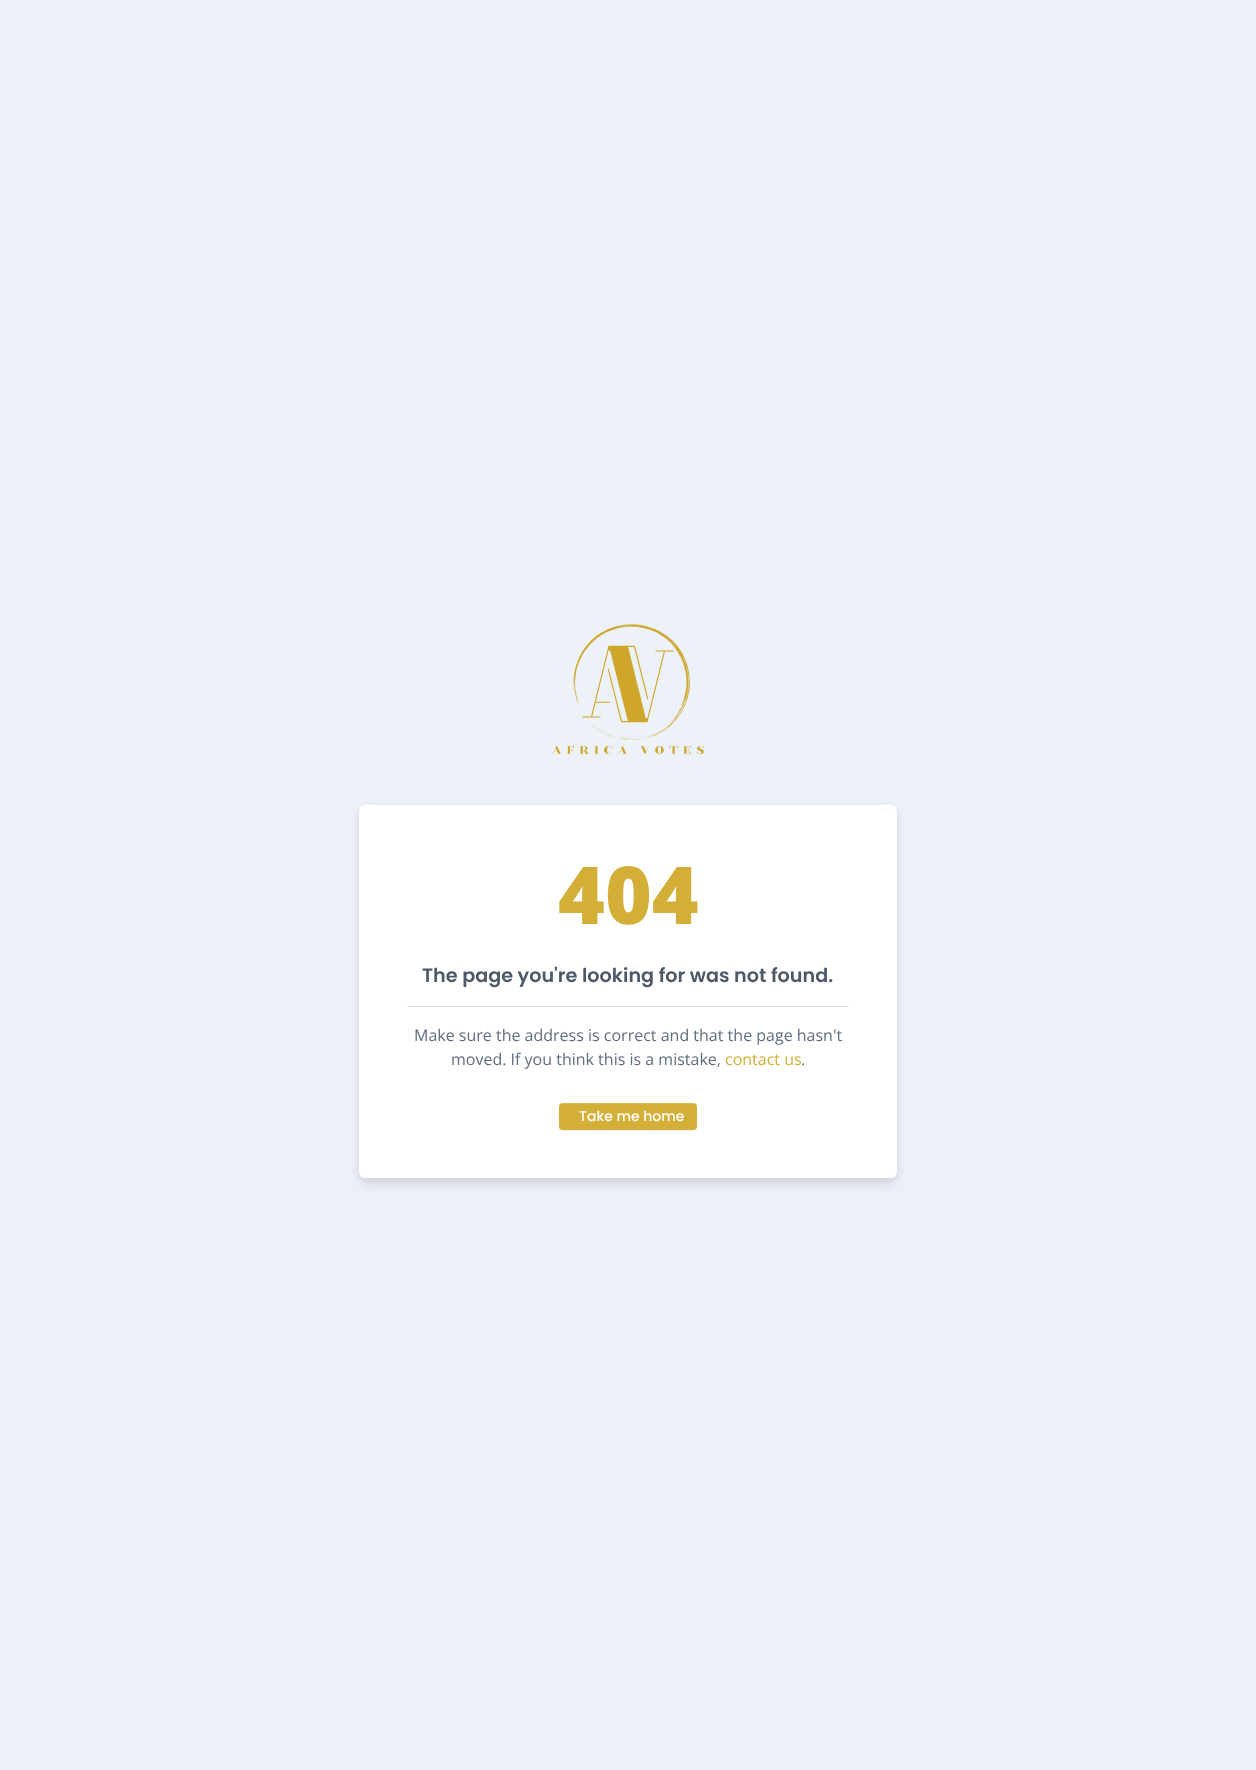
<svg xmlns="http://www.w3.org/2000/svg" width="1256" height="1770">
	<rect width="100%" height="100%" fill="#EDF2F9" />
	<image x="552" y="624" width="152" height="130" href="assets/img1.png" />
	<rect x="359" y="808" width="538" height="373" rx="6" fill="#000000" fill-opacity="0.07" filter="blur(3px)" />
	<rect x="359" y="812" width="538" height="373" rx="6" fill="#414558" fill-opacity="0.1" filter="blur(7px)" />
	<rect x="359" y="805" width="538" height="373" rx="6" fill="#FFFFFF" />
	<text x="558" y="924" font-family="Open Sans" font-size="80" font-weight="800" fill="#D4AF37">404</text>
	<text x="422" y="982" font-family="Poppins" font-size="19.2" font-weight="600" fill="#4D5969">The page you're looking for was not found.</text>
	<rect x="407" y="1006" width="442" height="1" fill="#D8E2EF" />
	<g font-family="Open Sans" font-size="16" fill="#5E6E82">
		<text x="414" y="1041">Make sure the address is correct and that the page hasn't</text>
		<text x="451" y="1065">moved. If you think this is a mistake,</text>
	</g>
	<text x="725" y="1065" font-family="Open Sans" font-size="16" fill="#D4AF37">contact us</text>
	<text x="801" y="1065" font-family="Open Sans" font-size="16" fill="#5E6E82">.</text>
	<rect x="559" y="1104" width="138" height="27" rx="4" fill="#000000" fill-opacity="0.07" filter="blur(0.5px)" />
	<rect x="559" y="1103" width="138" height="27" rx="4" fill="#D4AF37" />
	<path d="M563 1104H693C695 1104 697 1106 697 1108V1107C697 1105 695 1103 693 1103H563C561 1103 559 1105 559 1107V1108C559 1106 561 1104 563 1104Z" fill="#FFFFFF" fill-opacity="0.15" />
	<text x="579" y="1121" font-family="Poppins" font-size="14" font-weight="500" fill="#FFFFFF">Take me home</text>
</svg>
